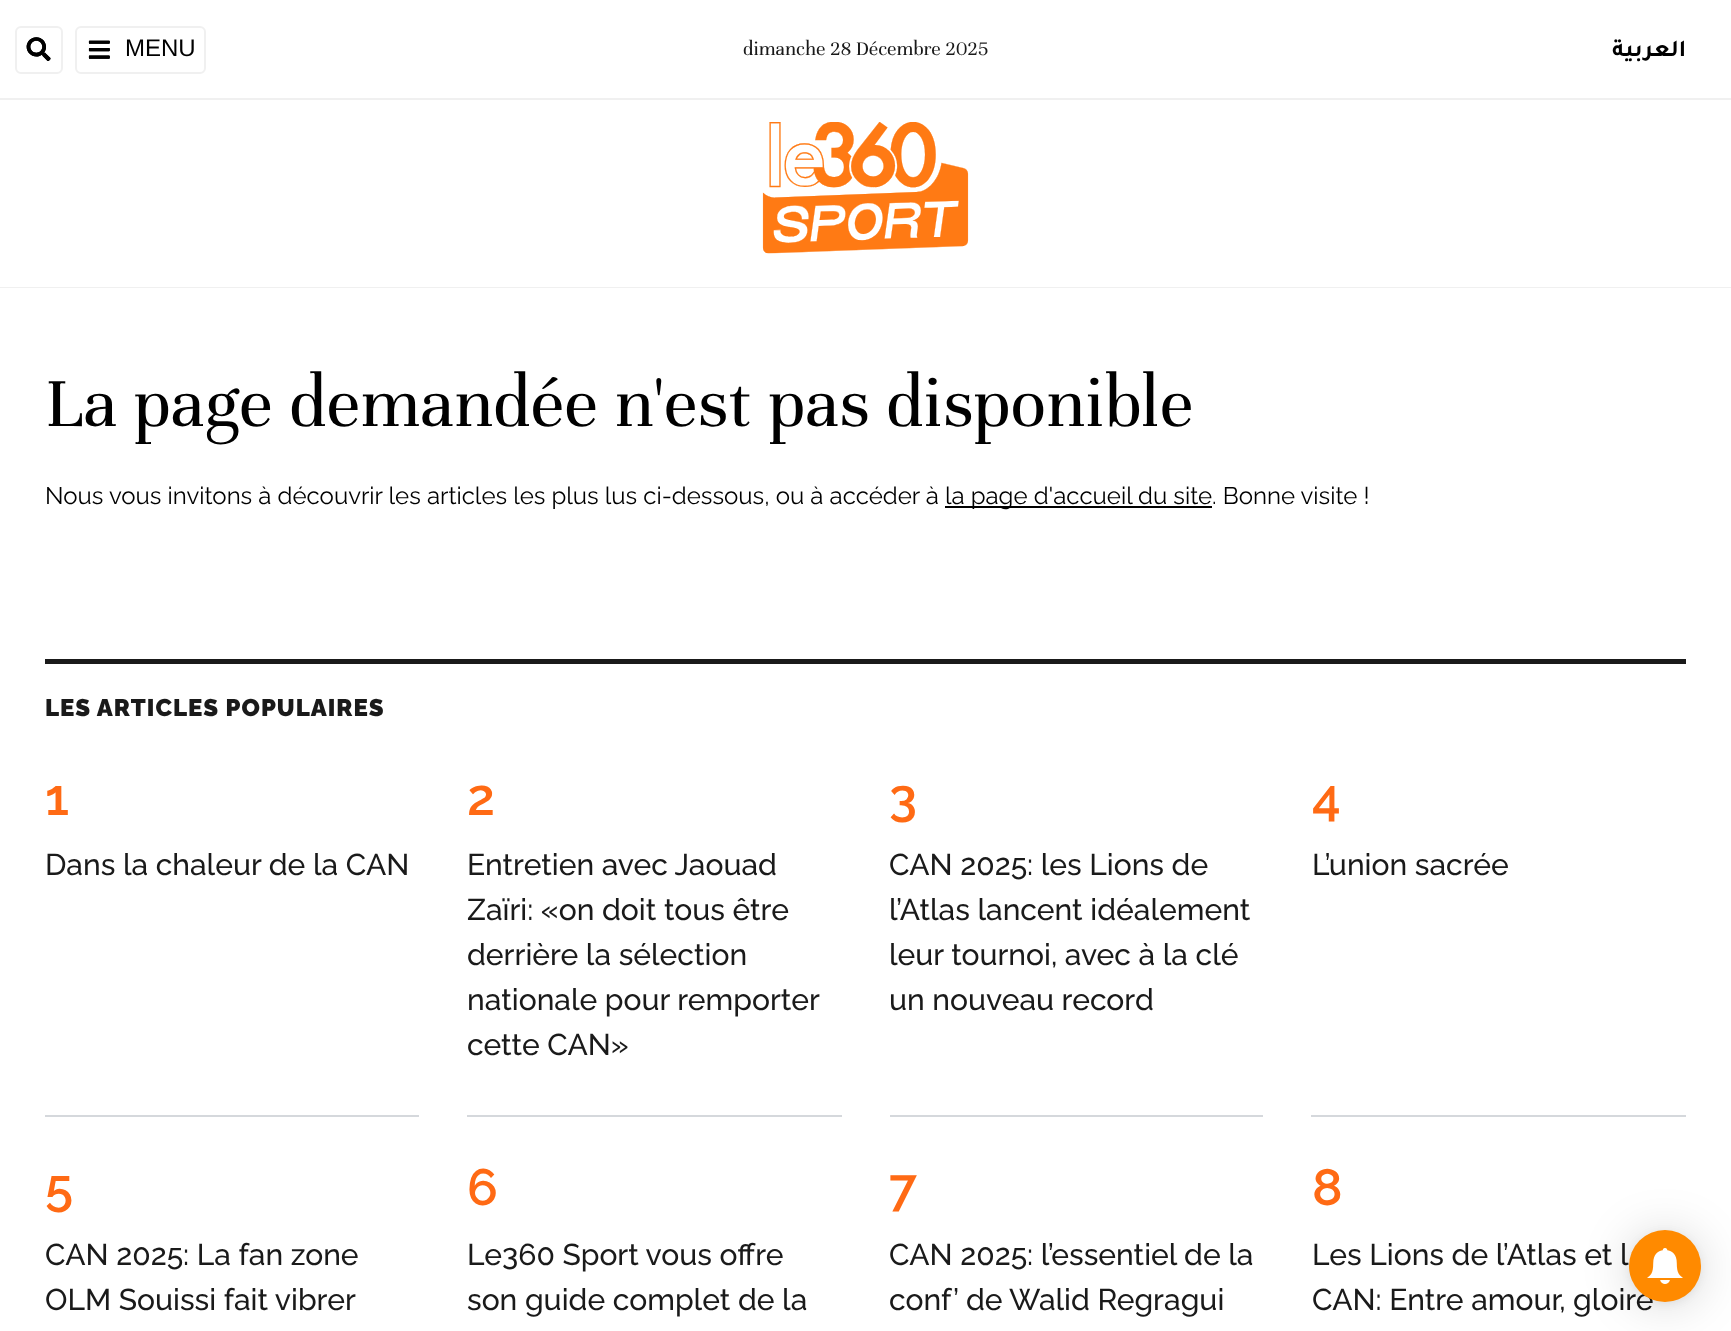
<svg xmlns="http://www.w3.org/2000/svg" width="1731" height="1331">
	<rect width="100%" height="100%" fill="#FFFFFF" />
	<rect x="0" y="98" width="1731" height="2" fill="#F0F0F0" />
	<rect x="16" y="27" width="46" height="46" rx="5" fill="none" stroke="#F0F0F0" stroke-width="2" />
	<image x="26" y="37" width="25" height="24" href="assets/img1.png" />
	<rect x="76" y="27" width="129" height="46" rx="5" fill="none" stroke="#F0F0F0" stroke-width="2" />
	<image x="88" y="40" width="22" height="19" href="assets/img2.png" />
	<text x="125" y="56" font-family="Liberation Sans" font-size="24" fill="#000000">MENU</text>
	<text x="743" y="55" font-family="Unna" font-size="21" fill="#1A1A1A">dimanche 28 Décembre 2025</text>
	<text x="1686" y="56" font-family="Tajawal" font-size="24" font-weight="700" direction="rtl" fill="#000000">العربية</text>
	<rect x="0" y="287" width="1731" height="1" fill="#F0F0F0" />
	<image x="762" y="122" width="207" height="132" href="assets/img3.png" />
	<text x="45" y="426" font-family="Unna" font-size="75" fill="#000000">La page demandée n'est pas disponible</text>
	<text x="45" y="504" font-family="Raleway" font-size="24" fill="#000000">Nous vous invitons à découvrir les articles les plus lus ci-dessous, ou à accéder à</text>
	<rect x="945" y="506" width="267" height="2" fill="#000000" />
	<text x="945" y="504" font-family="Raleway" font-size="24" fill="#000000">la page d'accueil du site. Bonne visite !</text>
	<rect x="45" y="659" width="1641" height="5" fill="#1A1A1A" />
	<text x="45" y="716" font-family="Raleway" font-size="24" font-weight="900" letter-spacing="1" fill="#1A1A1A">LES ARTICLES POPULAIRES</text>
	<text x="45" y="815" font-family="Raleway" font-size="51" font-weight="600" letter-spacing="-2" fill="#FF6A14">1</text>
	<text x="45" y="875" font-family="Raleway" font-size="30" font-weight="500" fill="#1A1A1A">Dans la chaleur de la CAN</text>
	<text x="467" y="815" font-family="Raleway" font-size="51" font-weight="600" letter-spacing="-2" fill="#FF6A14">2</text>
	<g font-family="Raleway" font-size="30" font-weight="500" fill="#1A1A1A">
		<text x="467" y="875">Entretien avec Jaouad</text>
		<text x="467" y="920">Zaïri: «on doit tous être</text>
		<text x="467" y="965">derrière la sélection</text>
		<text x="467" y="1010">nationale pour remporter</text>
		<text x="467" y="1055">cette CAN»</text>
	</g>
	<text x="889" y="815" font-family="Raleway" font-size="51" font-weight="600" letter-spacing="-2" fill="#FF6A14">3</text>
	<g font-family="Raleway" font-size="30" font-weight="500" fill="#1A1A1A">
		<text x="889" y="875">CAN 2025: les Lions de</text>
		<text x="889" y="920">l’Atlas lancent idéalement</text>
		<text x="889" y="965">leur tournoi, avec à la clé</text>
		<text x="889" y="1010">un nouveau record</text>
	</g>
	<text x="1312" y="815" font-family="Raleway" font-size="51" font-weight="600" letter-spacing="-2" fill="#FF6A14">4</text>
	<text x="1312" y="875" font-family="Raleway" font-size="30" font-weight="500" fill="#1A1A1A">L’union sacrée</text>
	<rect x="45" y="1115" width="374" height="2" fill="#D5D8DC" />
	<text x="45" y="1205" font-family="Raleway" font-size="51" font-weight="600" letter-spacing="-2" fill="#FF6A14">5</text>
	<g font-family="Raleway" font-size="30" font-weight="500" fill="#1A1A1A">
		<text x="45" y="1265">CAN 2025: La fan zone</text>
		<text x="45" y="1310">OLM Souissi fait vibrer</text>
	</g>
	<rect x="467" y="1115" width="375" height="2" fill="#D5D8DC" />
	<text x="467" y="1205" font-family="Raleway" font-size="51" font-weight="600" letter-spacing="-2" fill="#FF6A14">6</text>
	<g font-family="Raleway" font-size="30" font-weight="500" fill="#1A1A1A">
		<text x="467" y="1265">Le360 Sport vous offre</text>
		<text x="467" y="1310">son guide complet de la</text>
	</g>
	<rect x="890" y="1115" width="373" height="2" fill="#D5D8DC" />
	<text x="889" y="1205" font-family="Raleway" font-size="51" font-weight="600" letter-spacing="-2" fill="#FF6A14">7</text>
	<g font-family="Raleway" font-size="30" font-weight="500" fill="#1A1A1A">
		<text x="889" y="1265">CAN 2025: l’essentiel de la</text>
		<text x="889" y="1310">conf’ de Walid Regragui</text>
	</g>
	<rect x="1311" y="1115" width="375" height="2" fill="#D5D8DC" />
	<text x="1312" y="1205" font-family="Raleway" font-size="51" font-weight="600" letter-spacing="-2" fill="#FF6A14">8</text>
	<g font-family="Raleway" font-size="30" font-weight="500" fill="#1A1A1A">
		<text x="1312" y="1265">Les Lions de l’Atlas et l</text>
		<text x="1312" y="1310">CAN: Entre amour, gloire</text>
	</g>
	<rect x="1629" y="1233" width="72" height="72" rx="36" fill="#000000" fill-opacity="0.16" filter="blur(24px)" />
	<rect x="1629" y="1232" width="72" height="72" rx="36" fill="#000000" fill-opacity="0.06" filter="blur(4.5px)" />
	<circle cx="1665" cy="1266" r="36" fill="#FF8A00" />
	<image x="1647" y="1248" width="36" height="36" href="assets/img4.png" />
</svg>
